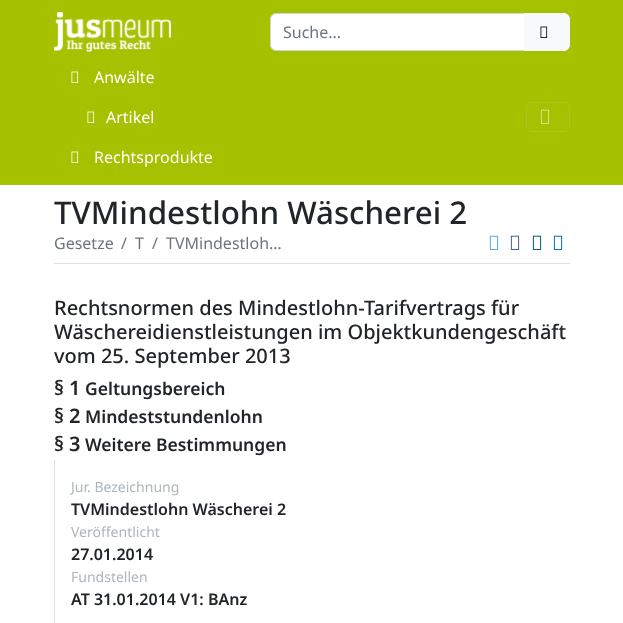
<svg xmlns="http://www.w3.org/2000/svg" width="623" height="623">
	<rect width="100%" height="100%" fill="#FFFFFF" />
	<rect x="0" y="0" width="623" height="185" fill="#A5C100" />
	<image x="54" y="12" width="117" height="40" href="assets/img1.png" />
	<path d="M276 13.5H524.5V50.5H276C273 50.5 270.5 48 270.5 45V19C270.5 16 273 13.5 276 13.5Z" fill="#FFFFFF" stroke="#CED4DA" />
	<text x="283" y="38" font-family="Noto Sans" font-size="16" fill="#6C757D">Suche...</text>
	<path d="M524.5 13.5H564C567 13.5 569.5 16 569.5 19V45C569.5 48 567 50.5 564 50.5H524.5Z" fill="#F8F9FA" stroke="#F8F9FA" />
	<image x="540" y="26" width="8" height="12" href="assets/img2.png" />
	<image x="71" y="71" width="8" height="12" href="assets/img3.png" />
	<text x="94" y="83" font-family="Noto Sans" font-size="16" fill="#FFFFFF">Anwälte</text>
	<image x="87" y="111" width="8" height="12" href="assets/img3.png" />
	<text x="106" y="123" font-family="Noto Sans" font-size="16" fill="#FFFFFF">Artikel</text>
	<image x="71" y="151" width="8" height="12" href="assets/img3.png" />
	<text x="94" y="163" font-family="Noto Sans" font-size="16" fill="#FFFFFF">Rechtsprodukte</text>
	<rect x="526.5" y="102.5" width="43" height="29" rx="5.5" fill="none" stroke="#AEC71A" />
	<image x="540" y="109" width="10" height="15" href="assets/img4.png" />
	<text x="54" y="224" font-family="Noto Sans" font-size="31.3" font-weight="500" fill="#212529">TVMindestlohn Wäscherei 2</text>
	<rect x="54" y="263" width="516" height="1" fill="#DEE2E6" />
	<g font-family="Noto Sans" font-size="16" fill="#6C757D">
		<text x="54" y="249">Gesetze</text>
		<text x="121" y="249">/</text>
		<text x="135" y="249">T</text>
		<text x="152" y="249">/</text>
		<text x="166" y="249">TVMindestloh…</text>
	</g>
	<image x="489" y="235" width="10" height="15" href="assets/img5.png" />
	<image x="510" y="235" width="10" height="15" href="assets/img6.png" />
	<image x="532" y="235" width="10" height="15" href="assets/img7.png" />
	<image x="553" y="235" width="10" height="15" href="assets/img8.png" />
	<g font-family="Noto Sans" font-size="20" font-weight="500" fill="#212529">
		<text x="54" y="315">Rechtsnormen des Mindestlohn-Tarifvertrags für</text>
		<text x="54" y="339">Wäschereidienstleistungen im Objektkundengeschäft</text>
		<text x="54" y="363">vom 25. September 2013</text>
	</g>
	<text x="54" y="395" font-family="Noto Sans" font-size="20" font-weight="600" fill="#212529">§ 1</text>
	<text x="85" y="395" font-family="Noto Sans" font-size="17.5" font-weight="600" fill="#212529">Geltungsbereich</text>
	<text x="54" y="423" font-family="Noto Sans" font-size="20" font-weight="600" fill="#212529">§ 2</text>
	<text x="85" y="423" font-family="Noto Sans" font-size="17.5" font-weight="600" fill="#212529">Mindeststundenlohn</text>
	<text x="54" y="451" font-family="Noto Sans" font-size="20" font-weight="600" fill="#212529">§ 3</text>
	<text x="85" y="451" font-family="Noto Sans" font-size="17.5" font-weight="600" fill="#212529">Weitere Bestimmungen</text>
	<rect x="54" y="460" width="1" height="163" fill="#DEE2E6" />
	<text x="71" y="492" font-family="Noto Sans" font-size="14" fill="#ADB5BD">Jur. Bezeichnung</text>
	<text x="71" y="515" font-family="Noto Sans" font-size="16" font-weight="600" fill="#212529">TVMindestlohn Wäscherei 2</text>
	<text x="71" y="537" font-family="Noto Sans" font-size="14" fill="#ADB5BD">Veröffentlicht</text>
	<text x="71" y="560" font-family="Noto Sans" font-size="16" font-weight="600" fill="#212529">27.01.2014</text>
	<text x="71" y="582" font-family="Noto Sans" font-size="14" fill="#ADB5BD">Fundstellen</text>
	<text x="71" y="605" font-family="Noto Sans" font-size="16" font-weight="600" fill="#212529">AT 31.01.2014 V1: BAnz</text>
</svg>
